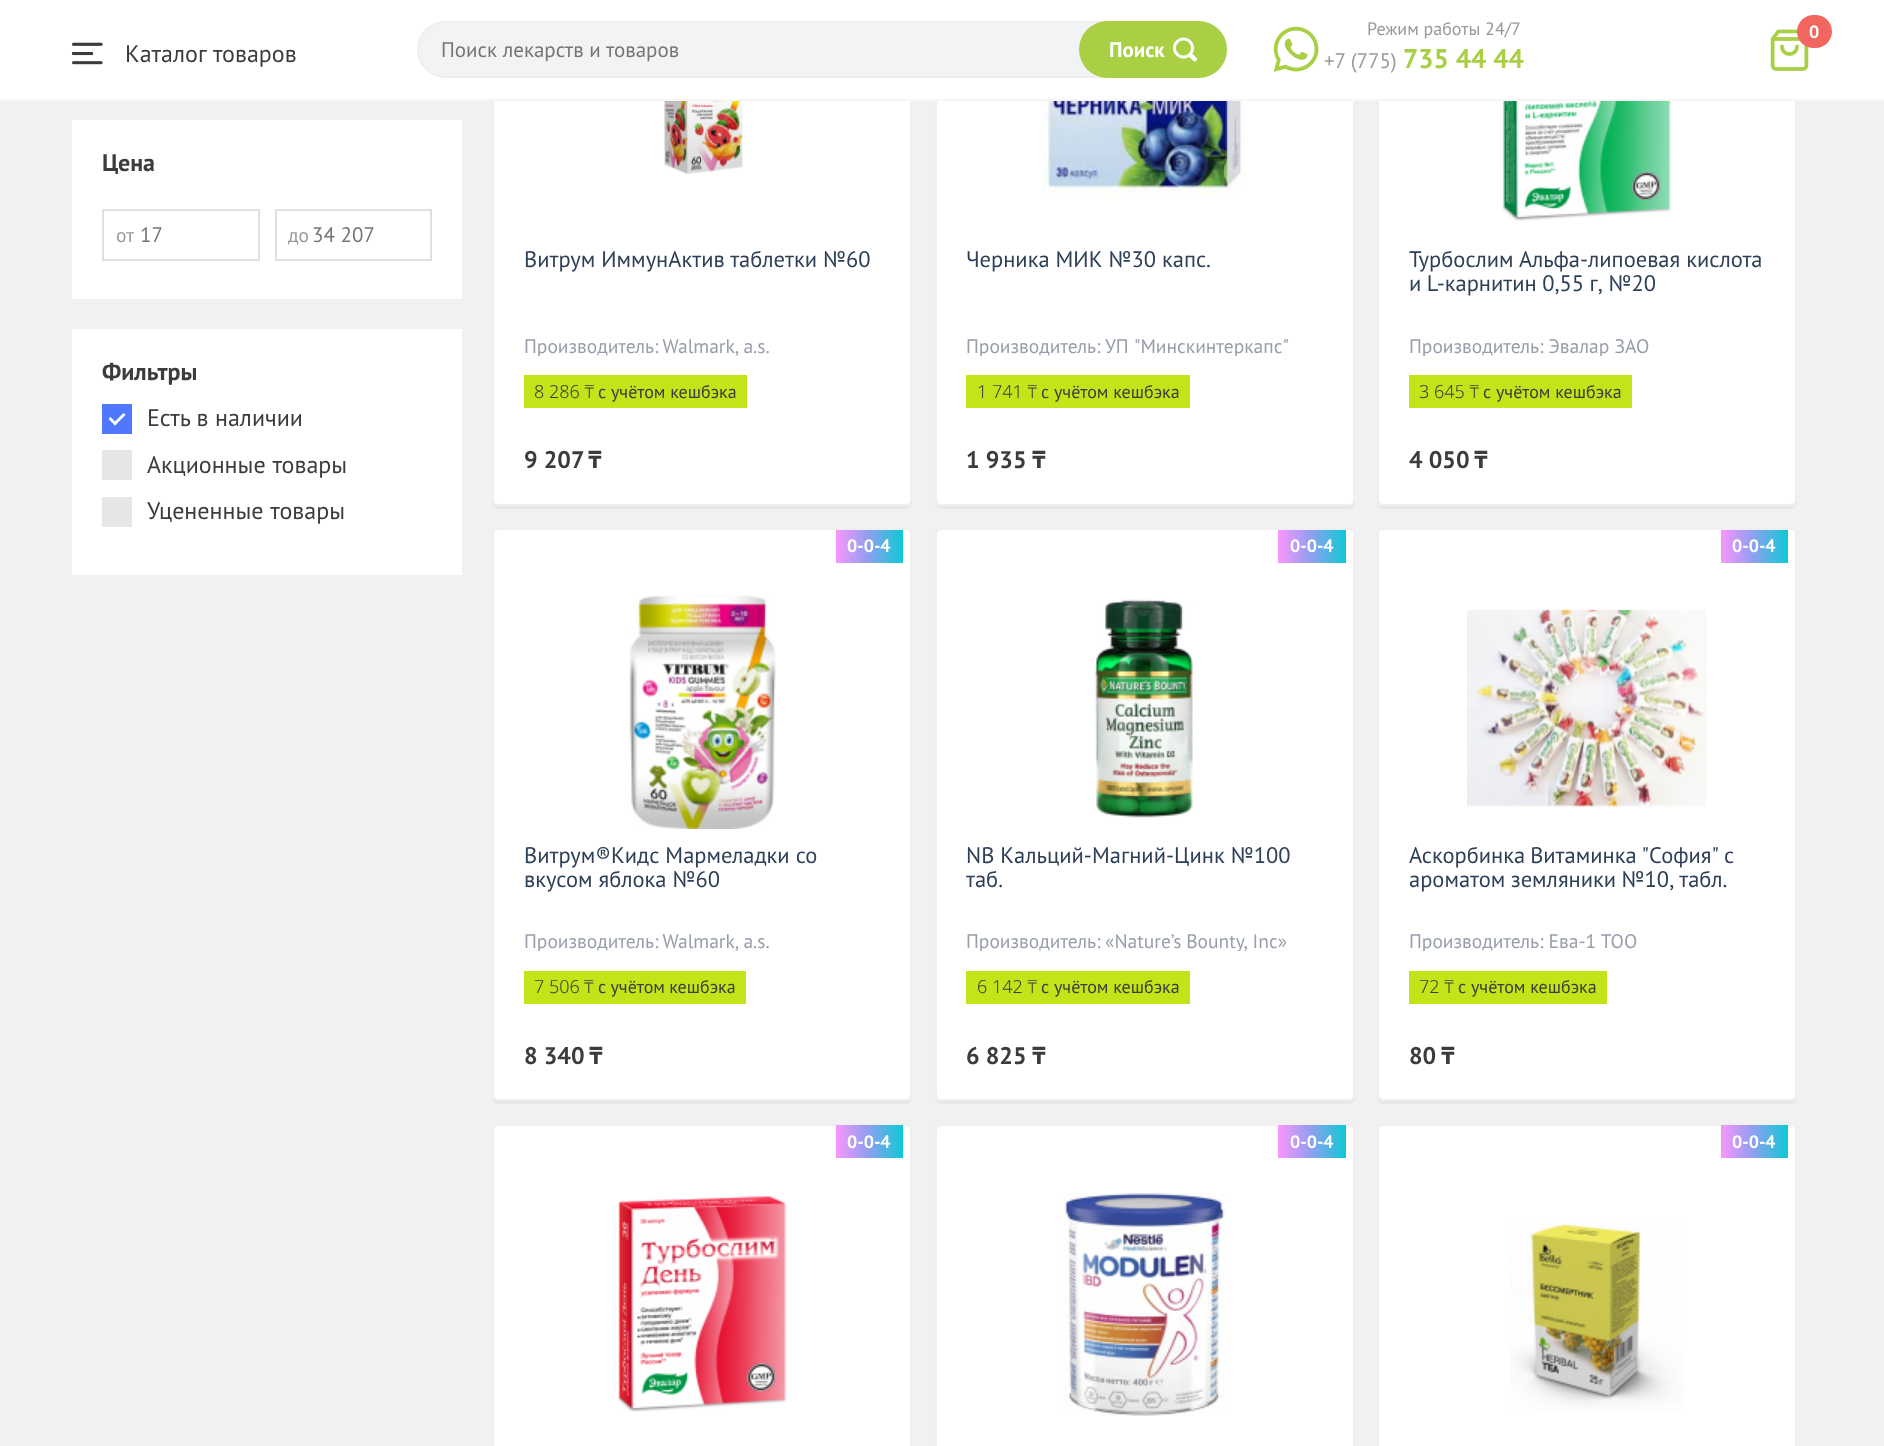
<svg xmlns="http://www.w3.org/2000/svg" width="1884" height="1446">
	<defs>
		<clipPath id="clip1"><rect x="524" y="336" width="357" height="20" /></clipPath>
		<clipPath id="clip2"><rect x="966" y="336" width="357" height="20" /></clipPath>
		<clipPath id="clip3"><rect x="1409" y="336" width="357" height="20" /></clipPath>
		<linearGradient id="g1" gradientUnits="userSpaceOnUse" x1="835" y1="546" x2="903" y2="546"><stop offset="0" stop-color="#FC96FC" /><stop offset="0.46" stop-color="#959EF1" /><stop offset="1" stop-color="#0DC9D5" /></linearGradient>
		<clipPath id="clip4"><rect x="524" y="932" width="357" height="19" /></clipPath>
		<linearGradient id="g2" gradientUnits="userSpaceOnUse" x1="1278" y1="546" x2="1346" y2="546"><stop offset="0" stop-color="#FC96FC" /><stop offset="0.46" stop-color="#959EF1" /><stop offset="1" stop-color="#0DC9D5" /></linearGradient>
		<clipPath id="clip5"><rect x="966" y="932" width="357" height="19" /></clipPath>
		<linearGradient id="g3" gradientUnits="userSpaceOnUse" x1="1720" y1="546" x2="1788" y2="546"><stop offset="0" stop-color="#FC96FC" /><stop offset="0.46" stop-color="#959EF1" /><stop offset="1" stop-color="#0DC9D5" /></linearGradient>
		<clipPath id="clip6"><rect x="1409" y="932" width="357" height="19" /></clipPath>
		<linearGradient id="g4" gradientUnits="userSpaceOnUse" x1="835" y1="1142" x2="903" y2="1141"><stop offset="0" stop-color="#FC96FC" /><stop offset="0.46" stop-color="#959EF1" /><stop offset="1" stop-color="#0DC9D5" /></linearGradient>
		<linearGradient id="g5" gradientUnits="userSpaceOnUse" x1="1278" y1="1142" x2="1346" y2="1141"><stop offset="0" stop-color="#FC96FC" /><stop offset="0.46" stop-color="#959EF1" /><stop offset="1" stop-color="#0DC9D5" /></linearGradient>
		<linearGradient id="g6" gradientUnits="userSpaceOnUse" x1="1720" y1="1142" x2="1788" y2="1141"><stop offset="0" stop-color="#FC96FC" /><stop offset="0.46" stop-color="#959EF1" /><stop offset="1" stop-color="#0DC9D5" /></linearGradient>
	</defs>
	<rect width="100%" height="100%" fill="#F1F1F1" />
	<path d="M492 500V503C492 506 495 509 498 509H906C909 509 912 506 912 503V500C912 503 909 506 906 506H498C495 506 492 503 492 500Z" fill="#E7E7E7" />
	<rect x="492" y="-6" width="420" height="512" rx="6" fill="#FFFFFF" />
	<rect x="493" y="-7" width="418" height="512" rx="5" fill="none" stroke="#7D7D7D" stroke-opacity="0.12" stroke-width="2" />
	<path d="M935 502V503C935 506 938 509 941 509H1349C1352 509 1355 506 1355 503V-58L1354-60V500C1354 503 1352 506 1348 506H940C938 506 936 504 935 502Z" fill="#E7E7E7" />
	<rect x="935" y="-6" width="420" height="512" rx="6" fill="#FFFFFF" />
	<rect x="936" y="-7" width="418" height="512" rx="5" fill="none" stroke="#7D7D7D" stroke-opacity="0.12" stroke-width="2" />
	<path d="M1377 500V503C1377 506 1380 509 1383 509H1791C1794 509 1797 506 1797 503V500C1797 503 1794 506 1791 506H1383C1380 506 1377 503 1377 500Z" fill="#E7E7E7" />
	<rect x="1377" y="-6" width="420" height="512" rx="6" fill="#FFFFFF" />
	<rect x="1378" y="-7" width="418" height="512" rx="5" fill="none" stroke="#7D7D7D" stroke-opacity="0.12" stroke-width="2" />
	<rect x="0" y="0" width="1884" height="99" fill="#FFFFFF" />
	<rect x="0" y="99" width="1884" height="2" fill="#F6F6F6" />
	<image x="1273" y="26" width="46" height="46" href="assets/img1.png" />
	<text x="1367" y="35" font-family="PT Sans" font-size="18" fill="#999999">Режим работы 24/7</text>
	<text x="1324" y="68" word-spacing="-1" font-family="PT Sans" font-size="21" fill="#999999">+7 (775)</text>
	<text x="1403" y="68" font-family="PT Sans" font-size="27" font-weight="700" fill="#A9CF44">735 44 44</text>
	<image x="1770" y="29" width="39" height="42" href="assets/img2.png" />
	<rect x="1797" y="15" width="35" height="33" rx="16.5" fill="#F1665E" />
	<text x="1809" y="38" font-family="PT Sans" font-size="18" font-weight="700" fill="#FFFFFF">0</text>
	<image x="71" y="42" width="32" height="23" href="assets/img3.png" />
	<text x="125" y="62" word-spacing="1" font-family="PT Sans" font-size="24" fill="#3C3C3C">Каталог товаров</text>
	<rect x="418" y="22" width="808" height="55" rx="27.5" fill="#F1F3F4" stroke="#EEEEEE" stroke-width="2" />
	<text x="441" y="57" font-family="PT Sans" font-size="21" fill="#757575">Поиск лекарств и товаров</text>
	<rect x="1079" y="21" width="148" height="57" rx="28.5" fill="#A9CF44" />
	<text x="1109" y="57" font-family="PT Sans" font-size="21" font-weight="700" fill="#FFFFFF">Поиск</text>
	<image x="1173" y="37" width="24" height="25" href="assets/img4.png" />
	<rect x="72" y="120" width="390" height="179" fill="#FFFFFF" />
	<text x="102" y="171" font-family="PT Sans" font-size="24" font-weight="700" fill="#3C3C3C">Цена</text>
	<rect x="103" y="210" width="156" height="50" fill="none" stroke="#E0E0E0" stroke-width="2" />
	<text x="116" y="242" font-family="PT Sans" font-size="19.5" fill="#999999">от</text>
	<text x="140" y="242" font-family="PT Sans" font-size="21" fill="#757575">17</text>
	<rect x="276" y="210" width="155" height="50" fill="none" stroke="#E0E0E0" stroke-width="2" />
	<text x="288" y="242" font-family="PT Sans" font-size="19.5" fill="#999999">до</text>
	<text x="312" y="242" font-family="PT Sans" font-size="21" fill="#757575">34 207</text>
	<rect x="72" y="329" width="390" height="246" fill="#FFFFFF" />
	<text x="102" y="380" font-family="PT Sans" font-size="24" font-weight="700" fill="#3C3C3C">Фильтры</text>
	<rect x="102" y="404" width="30" height="30" fill="#4F78FE" />
	<path d="M123.5 413L125.5 415L115 425.5L113 423.5Z" fill="#FFFFFF" />
	<path d="M110.5 417L117 423.5L115 425.5L108.5 419Z" fill="#FFFFFF" />
	<text x="147" y="426" font-family="PT Sans" font-size="24" fill="#3C3C3C">Есть в наличии</text>
	<rect x="102" y="450" width="30" height="30" fill="#E6E6E6" />
	<text x="147" y="473" word-spacing="1" font-family="PT Sans" font-size="24" fill="#3C3C3C">Акционные товары</text>
	<rect x="102" y="497" width="30" height="30" fill="#E6E6E6" />
	<text x="147" y="519" word-spacing="1" font-family="PT Sans" font-size="24" fill="#3C3C3C">Уцененные товары</text>
	<image x="664" y="101" width="79" height="74" href="assets/img5.png" />
	<text x="524" y="267" font-family="PT Sans" font-size="22.5" fill="#2E4057">Витрум ИммунАктив таблетки №60</text>
	<g clip-path="url(#clip1)">
		<text x="524" y="353" word-spacing="-1" font-family="PT Sans" font-size="19.5" fill="#979DAA">Производитель: Walmark, a.s.</text>
	</g>
	<rect x="524" y="375" width="223" height="33" fill="#C5E319" />
	<text x="534" y="398" font-family="Noto Sans" font-size="18" font-weight="300" fill="#3C3C3C">8 286 ₸</text>
	<text x="598" y="398" font-family="PT Sans" font-size="18" fill="#3C3C3C">с учётом кешбэка</text>
	<text x="524" y="468" font-family="PT Sans" font-size="24" font-weight="700" fill="#3C3C3C">9 207</text>
	<text x="588" y="468" font-family="Noto Sans" font-size="24" font-weight="700" fill="#3C3C3C">₸</text>
	<image x="1041" y="101" width="206" height="98" href="assets/img6.png" />
	<text x="966" y="267" font-family="PT Sans" font-size="22.5" fill="#2E4057">Черника МИК №30 капс.</text>
	<g clip-path="url(#clip2)">
		<text x="966" y="353" font-family="PT Sans" font-size="19.5" fill="#979DAA">Производитель: УП "Минскинтеркапс"</text>
	</g>
	<rect x="966" y="375" width="224" height="33" fill="#C5E319" />
	<text x="977" y="398" font-family="Noto Sans" font-size="18" font-weight="300" fill="#3C3C3C">1 741 ₸</text>
	<text x="1041" y="398" font-family="PT Sans" font-size="18" fill="#3C3C3C">с учётом кешбэка</text>
	<text x="966" y="468" font-family="PT Sans" font-size="24" font-weight="700" fill="#3C3C3C">1 935</text>
	<text x="1032" y="468" font-family="Noto Sans" font-size="24" font-weight="700" fill="#3C3C3C">₸</text>
	<image x="1502" y="101" width="170" height="120" href="assets/img7.png" />
	<g font-family="PT Sans" font-size="22.5" fill="#2E4057">
		<text x="1409" y="267">Турбослим Альфа-липоевая кислота</text>
		<text x="1409" y="291" word-spacing="-0.5">и L-карнитин 0,55 г, №20</text>
	</g>
	<g clip-path="url(#clip3)">
		<text x="1409" y="353" font-family="PT Sans" font-size="19.5" fill="#979DAA">Производитель: Эвалар ЗАО</text>
	</g>
	<rect x="1409" y="375" width="223" height="33" fill="#C5E319" />
	<text x="1419" y="398" font-family="Noto Sans" font-size="18" font-weight="300" fill="#3C3C3C">3 645 ₸</text>
	<text x="1483" y="398" font-family="PT Sans" font-size="18" fill="#3C3C3C">с учётом кешбэка</text>
	<text x="1409" y="468" font-family="PT Sans" font-size="24" font-weight="700" fill="#3C3C3C">4 050</text>
	<text x="1474" y="468" font-family="Noto Sans" font-size="24" font-weight="700" fill="#3C3C3C">₸</text>
	<path d="M492 1095C492 1099 493 1104 498 1104H906C911 1104 912 1099 912 1095C912 1098 909 1101 906 1101H498C495 1101 492 1098 492 1095Z" fill="#E7E7E7" />
	<rect x="492" y="528" width="420" height="573" rx="6" fill="#FFFFFF" />
	<rect x="493" y="529" width="418" height="571" rx="5" fill="none" stroke="#7D7D7D" stroke-opacity="0.12" stroke-width="2" />
	<rect x="836" y="530" width="67" height="33" fill="url(#g1)" />
	<text x="847" y="552" font-family="PT Sans" font-size="18" font-weight="700" fill="#FFFFFF">0-0-4</text>
	<image x="629" y="595" width="147" height="234" href="assets/img8.png" />
	<g font-family="PT Sans" font-size="22.5" fill="#2E4057">
		<text x="524" y="863">Витрум®Кидс Мармеладки со</text>
		<text x="524" y="887">вкусом яблока №60</text>
	</g>
	<g clip-path="url(#clip4)">
		<text x="524" y="948" word-spacing="-1" font-family="PT Sans" font-size="19.5" fill="#979DAA">Производитель: Walmark, a.s.</text>
	</g>
	<rect x="524" y="971" width="222" height="33" fill="#C5E319" />
	<g font-family="Noto Sans" font-size="18" font-weight="300" fill="#3C3C3C">
		<text x="534" y="993">7</text>
		<text x="549" y="993">506</text>
		<text x="584" y="993">₸</text>
	</g>
	<text x="598" y="993" word-spacing="-0.5" font-family="PT Sans" font-size="18" fill="#3C3C3C">с учётом кешбэка</text>
	<text x="524" y="1064" font-family="PT Sans" font-size="24" font-weight="700" fill="#3C3C3C">8 340</text>
	<text x="589" y="1064" font-family="Noto Sans" font-size="24" font-weight="700" fill="#3C3C3C">₸</text>
	<path d="M935 1097V1098C935 1101 938 1104 941 1104H1349C1352 1104 1355 1101 1355 1098V537L1354 535V1095C1354 1098 1352 1101 1348 1101H940C938 1101 936 1100 935 1097Z" fill="#E7E7E7" />
	<rect x="935" y="528" width="420" height="573" rx="6" fill="#FFFFFF" />
	<rect x="936" y="529" width="418" height="571" rx="5" fill="none" stroke="#7D7D7D" stroke-opacity="0.12" stroke-width="2" />
	<rect x="1278" y="530" width="68" height="33" fill="url(#g2)" />
	<text x="1290" y="552" font-family="PT Sans" font-size="18" font-weight="700" fill="#FFFFFF">0-0-4</text>
	<image x="1094" y="599" width="99" height="219" href="assets/img9.png" />
	<g font-family="PT Sans" font-size="22.5" fill="#2E4057">
		<text x="966" y="863">NB Кальций-Магний-Цинк №100</text>
		<text x="966" y="887">таб.</text>
	</g>
	<g clip-path="url(#clip5)">
		<text x="966" y="948" word-spacing="-0.5" font-family="PT Sans" font-size="19.5" fill="#979DAA">Производитель: «Nature’s Bounty, Inc»</text>
	</g>
	<rect x="966" y="971" width="224" height="33" fill="#C5E319" />
	<text x="977" y="993" font-family="Noto Sans" font-size="18" font-weight="300" fill="#3C3C3C">6 142 ₸</text>
	<text x="1041" y="993" font-family="PT Sans" font-size="18" fill="#3C3C3C">с учётом кешбэка</text>
	<text x="966" y="1064" font-family="PT Sans" font-size="24" font-weight="700" fill="#3C3C3C">6 825</text>
	<text x="1032" y="1064" font-family="Noto Sans" font-size="24" font-weight="700" fill="#3C3C3C">₸</text>
	<path d="M1377 1095C1377 1099 1378 1104 1383 1104H1791C1796 1104 1797 1099 1797 1095C1797 1098 1794 1101 1791 1101H1383C1380 1101 1377 1098 1377 1095Z" fill="#E7E7E7" />
	<rect x="1377" y="528" width="420" height="573" rx="6" fill="#FFFFFF" />
	<rect x="1378" y="529" width="418" height="571" rx="5" fill="none" stroke="#7D7D7D" stroke-opacity="0.12" stroke-width="2" />
	<rect x="1721" y="530" width="67" height="33" fill="url(#g3)" />
	<text x="1732" y="552" font-family="PT Sans" font-size="18" font-weight="700" fill="#FFFFFF">0-0-4</text>
	<image x="1467" y="609" width="240" height="199" href="assets/img10.png" />
	<g font-family="PT Sans" font-size="22.5" fill="#2E4057">
		<text x="1409" y="863" word-spacing="-1">Аскорбинка Витаминка "София" с</text>
		<text x="1409" y="887" word-spacing="-0.5">ароматом земляники №10, табл.</text>
	</g>
	<g clip-path="url(#clip6)">
		<text x="1409" y="948" font-family="PT Sans" font-size="19.5" fill="#979DAA">Производитель: Ева-1 ТОО</text>
	</g>
	<rect x="1409" y="971" width="198" height="33" fill="#C5E319" />
	<text x="1419" y="993" font-family="Noto Sans" font-size="18" font-weight="300" fill="#3C3C3C">72 ₸</text>
	<text x="1458" y="993" font-family="PT Sans" font-size="18" fill="#3C3C3C">с учётом кешбэка</text>
	<text x="1409" y="1064" font-family="PT Sans" font-size="24" font-weight="700" fill="#3C3C3C">80</text>
	<text x="1441" y="1064" font-family="Noto Sans" font-size="24" font-weight="700" fill="#3C3C3C">₸</text>
	<rect x="492" y="1124" width="420" height="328" rx="6" fill="#FFFFFF" />
	<rect x="493" y="1125" width="418" height="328" rx="5" fill="none" stroke="#7D7D7D" stroke-opacity="0.12" stroke-width="2" />
	<rect x="836" y="1125" width="67" height="33" fill="url(#g4)" />
	<text x="847" y="1148" font-family="PT Sans" font-size="18" font-weight="700" fill="#FFFFFF">0-0-4</text>
	<image x="618" y="1196" width="169" height="216" href="assets/img11.png" />
	<rect x="935" y="1124" width="420" height="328" rx="6" fill="#FFFFFF" />
	<rect x="936" y="1125" width="418" height="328" rx="5" fill="none" stroke="#7D7D7D" stroke-opacity="0.12" stroke-width="2" />
	<rect x="1278" y="1125" width="68" height="33" fill="url(#g5)" />
	<text x="1290" y="1148" font-family="PT Sans" font-size="18" font-weight="700" fill="#FFFFFF">0-0-4</text>
	<image x="1063" y="1193" width="162" height="223" href="assets/img12.png" />
	<rect x="1377" y="1124" width="420" height="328" rx="6" fill="#FFFFFF" />
	<rect x="1378" y="1125" width="418" height="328" rx="5" fill="none" stroke="#7D7D7D" stroke-opacity="0.12" stroke-width="2" />
	<rect x="1721" y="1125" width="67" height="33" fill="url(#g6)" />
	<text x="1732" y="1148" font-family="PT Sans" font-size="18" font-weight="700" fill="#FFFFFF">0-0-4</text>
	<image x="1510" y="1223" width="174" height="188" href="assets/img13.png" />
</svg>
